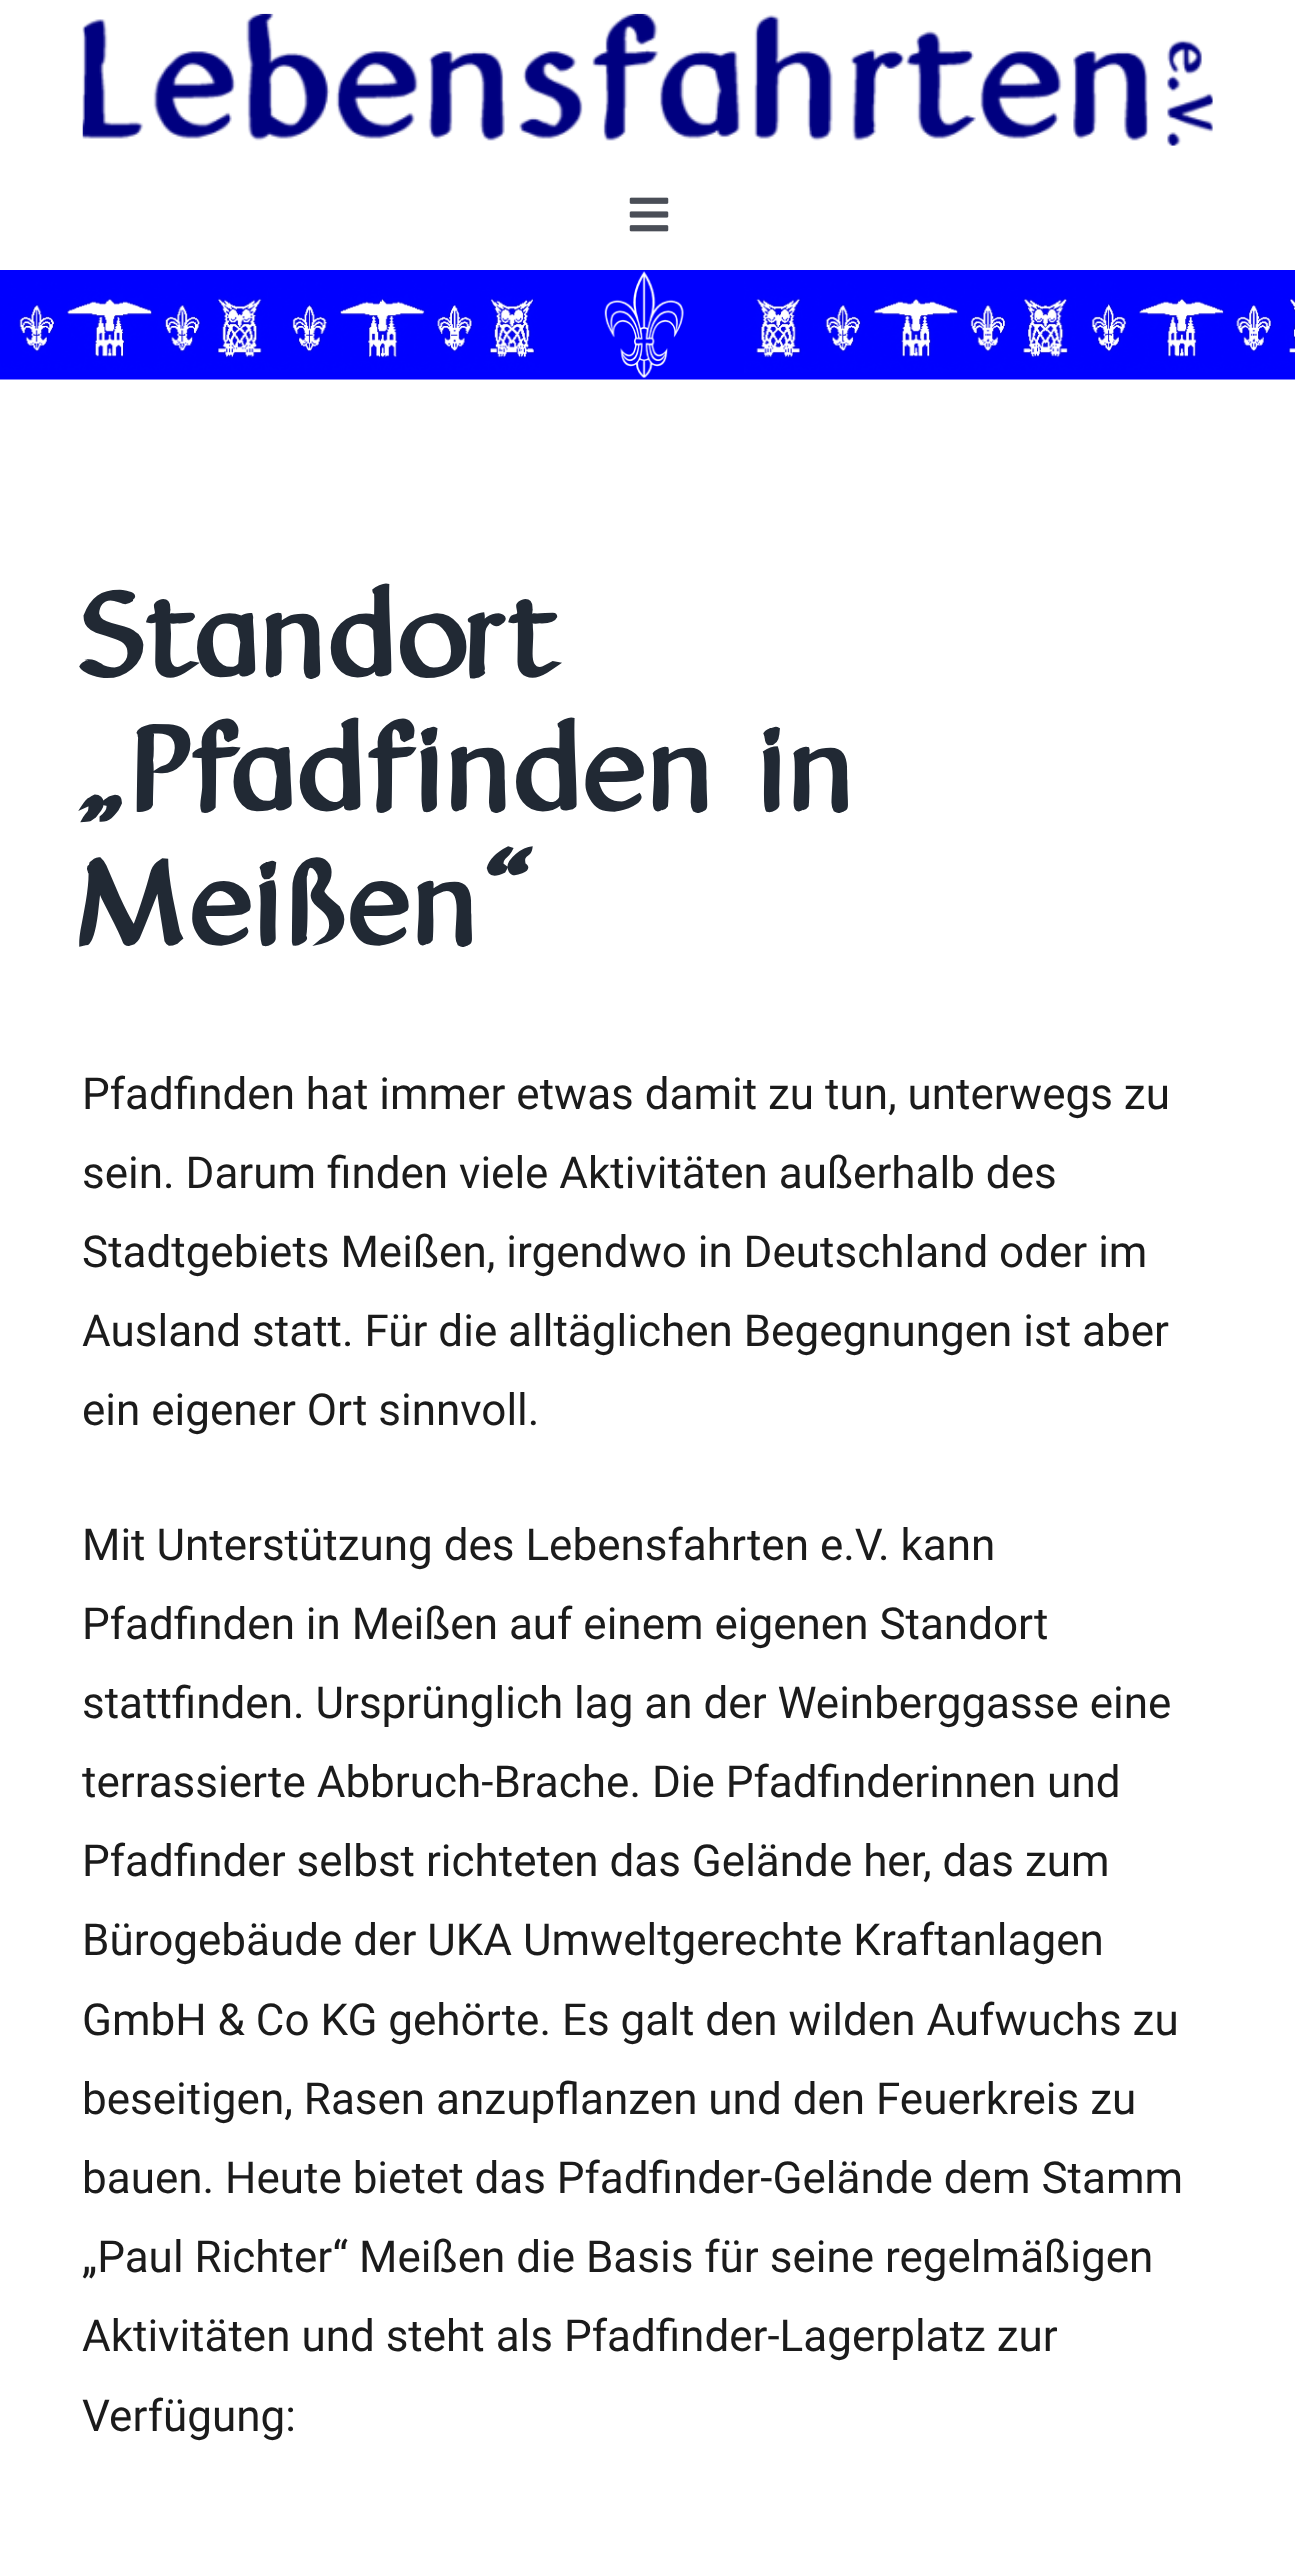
<svg xmlns="http://www.w3.org/2000/svg" width="1295" height="2575">
	<rect width="100%" height="100%" fill="#FFFFFF" />
	<image x="82" y="13" width="1131" height="133" href="assets/img1.png" />
	<image x="629" y="197" width="40" height="35" href="assets/img2.png" />
	<image x="0" y="270" width="1295" height="110" href="assets/img3.png" />
	<g font-family="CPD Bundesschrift" font-size="115.5" font-weight="700" fill="#212934">
		<text x="82" y="676">Standort</text>
		<text x="82" y="810">„Pfadfinden in</text>
		<text x="82" y="944">Meißen“</text>
	</g>
	<g font-family="Roboto" font-size="44" fill="#1B1B1B">
		<text x="82" y="1109">Pfadfinden hat immer etwas damit zu tun, unterwegs zu</text>
		<text x="82" y="1188">sein. Darum finden viele Aktivitäten außerhalb des</text>
		<text x="82" y="1267">Stadtgebiets Meißen, irgendwo in Deutschland oder im</text>
		<text x="82" y="1346">Ausland statt. Für die alltäglichen Begegnungen ist aber</text>
		<text x="82" y="1425">ein eigener Ort sinnvoll.</text>
		<text x="82" y="1560">Mit Unterstützung des Lebensfahrten e.V. kann</text>
		<text x="82" y="1639">Pfadfinden in Meißen auf einem eigenen Standort</text>
		<text x="82" y="1718">stattfinden. Ursprünglich lag an der Weinberggasse eine</text>
		<text x="82" y="1797">terrassierte Abbruch-Brache. Die Pfadfinderinnen und</text>
		<text x="82" y="1876">Pfadfinder selbst richteten das Gelände her, das zum</text>
		<text x="82" y="1955">Bürogebäude der UKA Umweltgerechte Kraftanlagen</text>
		<text x="82" y="2035">GmbH &amp; Co KG gehörte. Es galt den wilden Aufwuchs zu</text>
		<text x="82" y="2114">beseitigen, Rasen anzupflanzen und den Feuerkreis zu</text>
		<text x="82" y="2193">bauen. Heute bietet das Pfadfinder-Gelände dem Stamm</text>
		<text x="82" y="2272">„Paul Richter“ Meißen die Basis für seine regelmäßigen</text>
		<text x="82" y="2351">Aktivitäten und steht als Pfadfinder-Lagerplatz zur</text>
		<text x="82" y="2431">Verfügung:</text>
	</g>
</svg>
